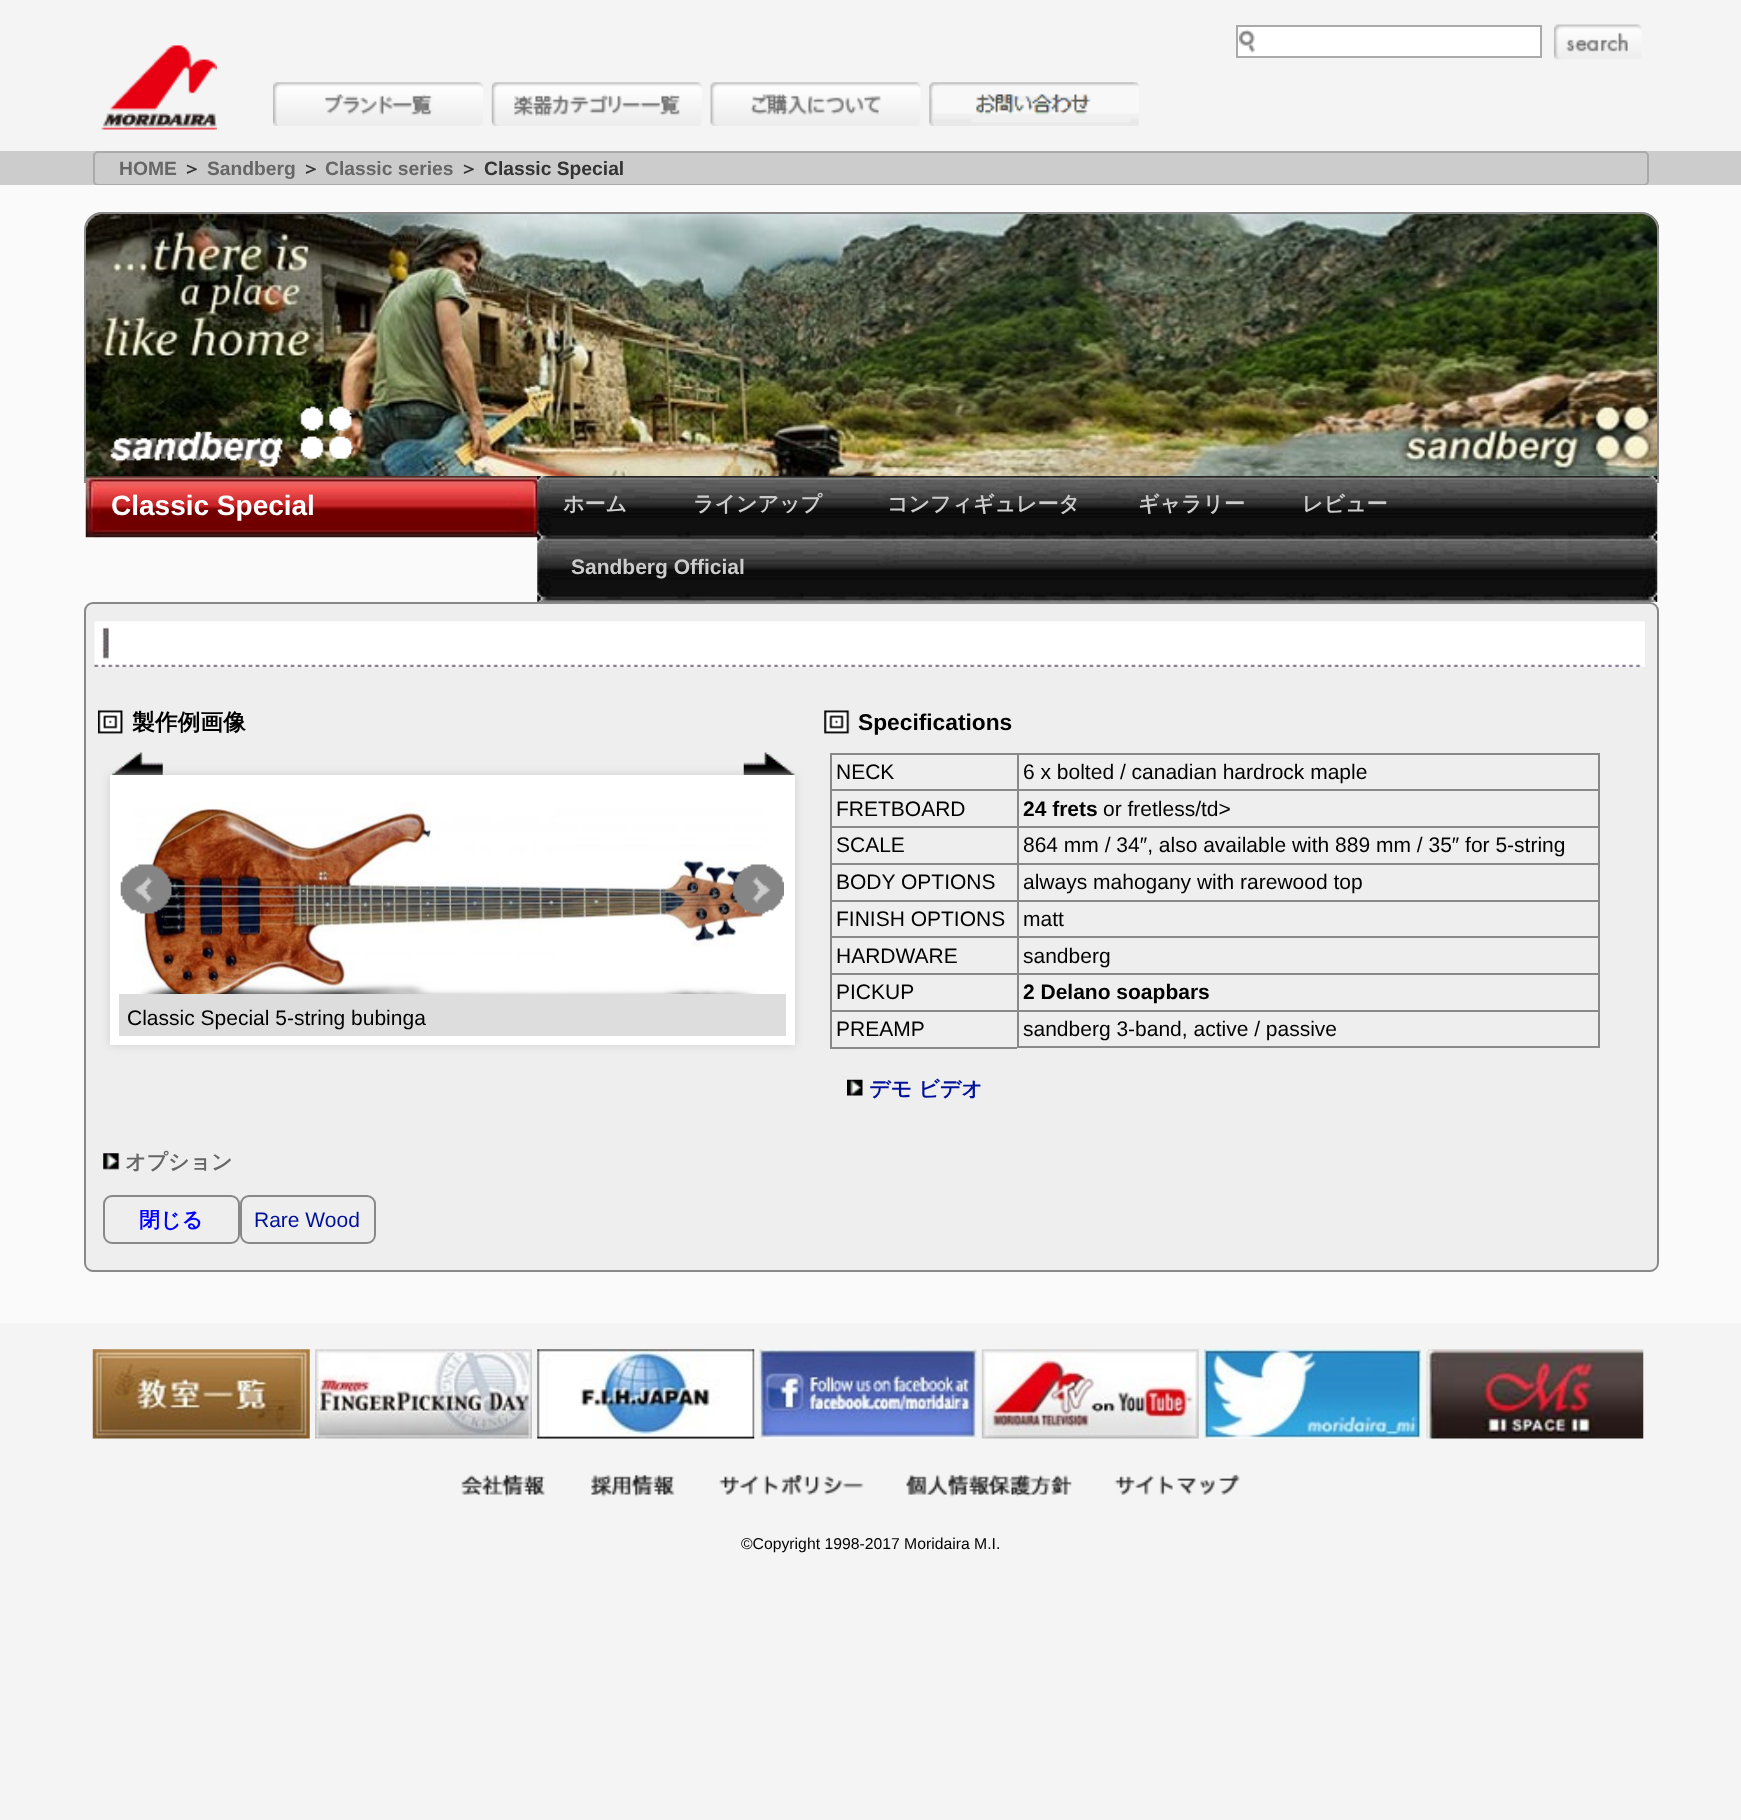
<svg xmlns="http://www.w3.org/2000/svg" width="1741" height="1820">
	<rect width="100%" height="100%" fill="#F4F4F4" />
	<image x="101" y="45" width="116" height="85" href="assets/img1.png" />
	<image x="273" y="82" width="210" height="44" href="assets/img2.png" />
	<image x="491" y="82" width="211" height="44" href="assets/img3.png" />
	<image x="710" y="82" width="211" height="44" href="assets/img4.png" />
	<image x="929" y="82" width="210" height="44" href="assets/img5.png" />
	<rect x="1238" y="27" width="302" height="29" fill="#FFFFFF" />
	<image x="1239" y="29" width="16" height="24" href="assets/img6.png" />
	<rect x="1237" y="26" width="304" height="31" fill="none" stroke="#AAAAAA" stroke-width="2" />
	<image x="1554" y="24" width="88" height="36" href="assets/img7.png" />
	<rect x="0" y="151" width="1741" height="34" fill="#CCCCCC" />
	<rect x="94" y="152" width="1554" height="33" rx="4" fill="none" stroke="#AAAAAA" stroke-width="2" />
	<text x="119" y="175" font-family="Liberation Sans" font-size="19.25" font-weight="700" fill="#666666">HOME</text>
	<text x="182" y="175" font-family="WenQuanYi Zen Hei" font-size="19.25" font-weight="700" fill="#333333">＞</text>
	<text x="207" y="175" font-family="Liberation Sans" font-size="19.25" font-weight="700" fill="#666666">Sandberg</text>
	<text x="301" y="175" font-family="WenQuanYi Zen Hei" font-size="19.25" font-weight="700" fill="#333333">＞</text>
	<text x="325" y="175" font-family="Liberation Sans" font-size="19.25" font-weight="700" fill="#666666">Classic series</text>
	<text x="459" y="175" font-family="WenQuanYi Zen Hei" font-size="19.25" font-weight="700" fill="#333333">＞</text>
	<text x="484" y="175" font-family="Liberation Sans" font-size="19.25" font-weight="700" fill="#333333">Classic Special</text>
	<rect x="0" y="185" width="1741" height="1138" fill="#FAFAFA" />
	<image x="85" y="213" width="1574" height="263" href="assets/img8.png" />
	<path d="M102 213H1641C1650.5 213 1658 220.5 1658 230V482H85V230C85 220.5 92.5 213 102 213Z" fill="none" stroke="#888888" stroke-width="2" />
	<image x="110" y="406" width="244" height="61" href="assets/img9.png" />
	<image x="85" y="476" width="453" height="62" href="assets/img10.png" />
	<text x="111" y="515" font-family="Liberation Sans" font-size="28" font-weight="700" fill="#FFFFFF">Classic Special</text>
	<image x="537" y="476" width="1121" height="126" href="assets/img11.png" />
	<g font-family="WenQuanYi Zen Hei" font-size="21" font-weight="700" fill="#CCCCCC">
		<text x="563" y="511">ホーム</text>
		<text x="693" y="511">ラインアップ</text>
		<text x="887" y="511">コンフィギュレータ</text>
		<text x="1138" y="511">ギャラリー</text>
		<text x="1302" y="511">レビュー</text>
	</g>
	<text x="571" y="574" font-family="Liberation Sans" font-size="21" font-weight="700" fill="#CCCCCC">Sandberg Official</text>
	<rect x="85" y="603" width="1573" height="668" rx="8" fill="#EEEEEE" stroke="#888888" stroke-width="2" />
	<image x="94" y="621" width="1551" height="46" href="assets/img12.png" />
	<image x="98" y="710" width="25" height="24" href="assets/img13.png" />
	<text x="132" y="730" font-family="WenQuanYi Zen Hei" font-size="22.75" font-weight="700" fill="#000000">製作例画像</text>
	<image x="112" y="752" width="51" height="23" href="assets/img14.png" />
	<image x="743" y="752" width="52" height="23" href="assets/img15.png" />
	<rect x="110" y="775" width="685" height="270" fill="#CCCCCC" filter="blur(4.5px)" />
	<rect x="110" y="775" width="685" height="270" fill="#FFFFFF" />
	<image x="135" y="802" width="633" height="192" href="assets/img18.png" />
	<image x="120" y="864" width="52" height="50" href="assets/img16.png" />
	<image x="733" y="864" width="51" height="50" href="assets/img17.png" />
	<rect x="119" y="994" width="667" height="42" fill="#DDDDDD" />
	<text x="127" y="1025" font-family="Liberation Sans" font-size="21" fill="#000000">Classic Special 5-string bubinga</text>
	<image x="824" y="710" width="26" height="24" href="assets/img19.png" />
	<text x="858" y="730" font-family="Liberation Sans" font-size="22.75" font-weight="700" fill="#000000">Specifications</text>
	<rect x="830" y="753" width="770" height="2" fill="#888888" />
	<rect x="830" y="753" width="2" height="36" fill="#888888" />
	<text x="836" y="779" font-family="Liberation Sans" font-size="21" fill="#000000">NECK</text>
	<rect x="1598" y="753" width="2" height="36" fill="#888888" />
	<rect x="1017" y="753" width="2" height="36" fill="#888888" />
	<text x="1023" y="779" font-family="Liberation Sans" font-size="21" fill="#000000">6 x bolted / canadian hardrock maple</text>
	<rect x="830" y="789" width="770" height="2" fill="#888888" />
	<rect x="830" y="789" width="2" height="37" fill="#888888" />
	<text x="836" y="816" font-family="Liberation Sans" font-size="21" fill="#000000">FRETBOARD</text>
	<rect x="1598" y="789" width="2" height="37" fill="#888888" />
	<rect x="1017" y="789" width="2" height="37" fill="#888888" />
	<text x="1023" y="816" font-family="Liberation Sans" font-size="21" font-weight="700" fill="#000000">24 frets</text>
	<text x="1103" y="816" font-family="Liberation Sans" font-size="21" fill="#000000">or fretless/td&gt;</text>
	<rect x="830" y="826" width="770" height="2" fill="#888888" />
	<rect x="830" y="826" width="2" height="37" fill="#888888" />
	<text x="836" y="852" font-family="Liberation Sans" font-size="21" fill="#000000">SCALE</text>
	<rect x="1598" y="826" width="2" height="37" fill="#888888" />
	<rect x="1017" y="826" width="2" height="37" fill="#888888" />
	<text x="1023" y="852" font-family="Liberation Sans" font-size="21" fill="#000000">864 mm / 34″, also available with 889 mm / 35″ for 5-string</text>
	<rect x="830" y="863" width="770" height="2" fill="#888888" />
	<rect x="830" y="863" width="2" height="37" fill="#888888" />
	<text x="836" y="889" font-family="Liberation Sans" font-size="21" fill="#000000">BODY OPTIONS</text>
	<rect x="1598" y="863" width="2" height="37" fill="#888888" />
	<rect x="1017" y="863" width="2" height="37" fill="#888888" />
	<text x="1023" y="889" font-family="Liberation Sans" font-size="21" fill="#000000">always mahogany with rarewood top</text>
	<rect x="830" y="900" width="770" height="2" fill="#888888" />
	<rect x="830" y="900" width="2" height="36" fill="#888888" />
	<text x="836" y="926" font-family="Liberation Sans" font-size="21" fill="#000000">FINISH OPTIONS</text>
	<rect x="1598" y="900" width="2" height="36" fill="#888888" />
	<rect x="1017" y="900" width="2" height="36" fill="#888888" />
	<text x="1023" y="926" font-family="Liberation Sans" font-size="21" fill="#000000">matt</text>
	<rect x="830" y="936" width="770" height="2" fill="#888888" />
	<rect x="830" y="936" width="2" height="37" fill="#888888" />
	<text x="836" y="963" font-family="Liberation Sans" font-size="21" fill="#000000">HARDWARE</text>
	<rect x="1598" y="936" width="2" height="37" fill="#888888" />
	<rect x="1017" y="936" width="2" height="37" fill="#888888" />
	<text x="1023" y="963" font-family="Liberation Sans" font-size="21" fill="#000000">sandberg</text>
	<rect x="830" y="973" width="770" height="2" fill="#888888" />
	<rect x="830" y="973" width="2" height="37" fill="#888888" />
	<text x="836" y="999" font-family="Liberation Sans" font-size="21" fill="#000000">PICKUP</text>
	<rect x="1598" y="973" width="2" height="37" fill="#888888" />
	<rect x="1017" y="973" width="2" height="37" fill="#888888" />
	<text x="1023" y="999" font-family="Liberation Sans" font-size="21" font-weight="700" fill="#000000">2 Delano soapbars</text>
	<rect x="830" y="1010" width="187" height="2" fill="#888888" />
	<rect x="830" y="1047" width="187" height="2" fill="#888888" />
	<rect x="830" y="1010" width="2" height="38" fill="#888888" />
	<text x="836" y="1036" font-family="Liberation Sans" font-size="21" fill="#000000">PREAMP</text>
	<rect x="1018" y="1011" width="581" height="36" fill="none" stroke="#888888" stroke-width="2" />
	<text x="1023" y="1036" font-family="Liberation Sans" font-size="21" fill="#000000">sandberg 3-band, active / passive</text>
	<image x="847" y="1079" width="16" height="17" href="assets/img20.png" />
	<text x="869" y="1096" font-family="WenQuanYi Zen Hei" font-size="21" font-weight="700" fill="#001199">デモ ビデオ</text>
	<image x="103" y="1153" width="17" height="17" href="assets/img21.png" />
	<text x="125" y="1169" font-family="WenQuanYi Zen Hei" font-size="21" font-weight="700" fill="#666666">オプション</text>
	<rect x="104" y="1196" width="135" height="47" rx="8" fill="none" stroke="#888888" stroke-width="2" />
	<text x="139" y="1227" font-family="WenQuanYi Zen Hei" font-size="21" font-weight="700" fill="#0000FF">閉じる</text>
	<rect x="241" y="1196" width="134" height="47" rx="8" fill="none" stroke="#888888" stroke-width="2" />
	<text x="254" y="1227" font-family="Liberation Sans" font-size="21" fill="#001199">Rare Wood</text>
	<image x="92" y="1349" width="218" height="90" href="assets/img22.png" />
	<image x="315" y="1349" width="217" height="90" href="assets/img23.png" />
	<image x="537" y="1349" width="218" height="90" href="assets/img24.png" />
	<image x="759" y="1349" width="218" height="90" href="assets/img25.png" />
	<image x="981" y="1349" width="218" height="90" href="assets/img26.png" />
	<image x="1204" y="1349" width="217" height="90" href="assets/img27.png" />
	<image x="1426" y="1349" width="218" height="90" href="assets/img28.png" />
	<image x="461" y="1474" width="84" height="23" href="assets/img29.png" />
	<image x="591" y="1474" width="84" height="23" href="assets/img30.png" />
	<image x="719" y="1474" width="145" height="21" href="assets/img31.png" />
	<image x="906" y="1474" width="166" height="23" href="assets/img32.png" />
	<image x="1114" y="1474" width="126" height="21" href="assets/img33.png" />
	<text x="741" y="1549" font-family="Liberation Sans" font-size="15.75" fill="#000000">©Copyright 1998-2017 Moridaira M.I.</text>
</svg>
